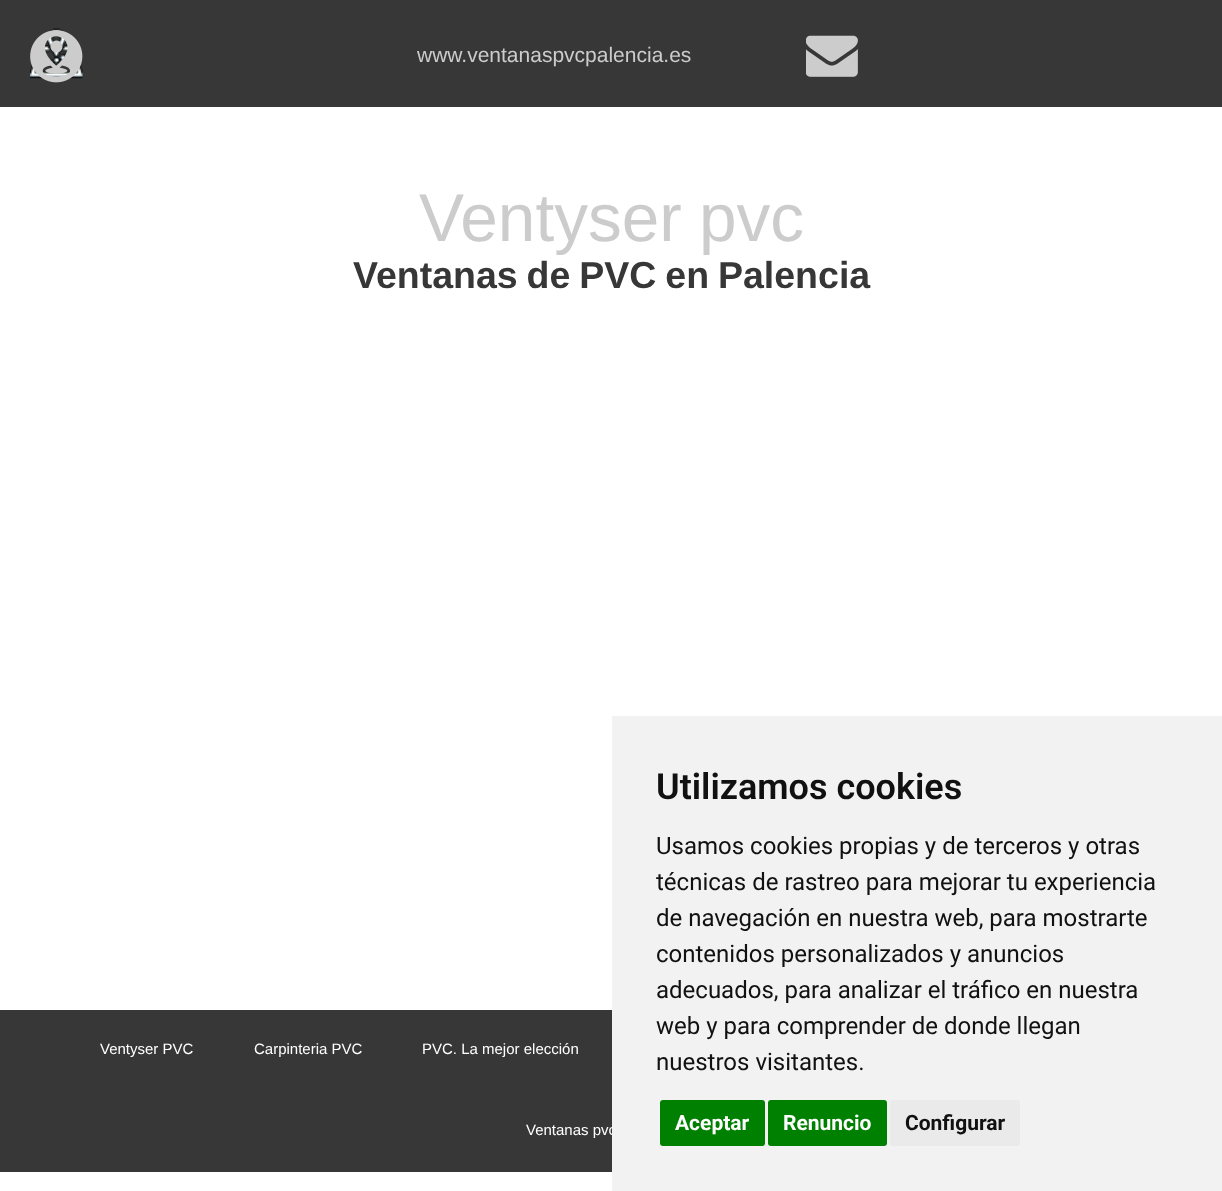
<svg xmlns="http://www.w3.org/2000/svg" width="1222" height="1191">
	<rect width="100%" height="100%" fill="#FFFFFF" />
	<rect x="0" y="0" width="1222" height="107" fill="#373737" />
	<image x="30" y="28" width="53" height="51" href="assets/img1.png" />
	<image x="30" y="30" width="53" height="53" href="assets/img2.png" />
	<text x="417" y="62" font-family="Liberation Sans" font-size="21" fill="#CCCCCC">www.ventanaspvcpalencia.es</text>
	<image x="806" y="35" width="52" height="42" href="assets/img3.png" />
	<text x="419" y="241" word-spacing="-1.5" font-family="Liberation Sans" font-size="67.5" fill="#CCCCCC">Ventyser pvc</text>
	<text x="353" y="288" word-spacing="-1.5" font-family="Liberation Sans" font-size="37.5" font-weight="700" fill="#373737">Ventanas de PVC en Palencia</text>
	<rect x="0" y="1010" width="612" height="162" fill="#373737" />
	<g font-family="Liberation Sans" font-size="15" fill="#FFFFFF">
		<text x="100" y="1054">Ventyser PVC</text>
		<text x="254" y="1054">Carpinteria PVC</text>
		<text x="422" y="1054">PVC. La mejor elección</text>
		<text x="526" y="1135">Ventanas pvc</text>
	</g>
	<rect x="612" y="716" width="610" height="475" fill="#F2F2F2" />
	<text x="656" y="799" font-family="Roboto" font-size="36" font-weight="600" fill="#111111">Utilizamos cookies</text>
	<g font-family="Roboto" font-size="24" fill="#111111">
		<text x="656" y="854">Usamos cookies propias y de terceros y otras</text>
		<text x="656" y="890">técnicas de rastreo para mejorar tu experiencia</text>
		<text x="656" y="926">de navegación en nuestra web, para mostrarte</text>
		<text x="656" y="962">contenidos personalizados y anuncios</text>
		<text x="656" y="998">adecuados, para analizar el tráfico en nuestra</text>
		<text x="656" y="1034">web y para comprender de donde llegan</text>
		<text x="656" y="1070">nuestros visitantes.</text>
	</g>
	<rect x="660" y="1100" width="105" height="46" rx="3" fill="#008000" />
	<text x="675" y="1130" font-family="Roboto" font-size="21" font-weight="700" fill="#FFFFFF">Aceptar</text>
	<rect x="768" y="1100" width="119" height="46" rx="3" fill="#008000" />
	<text x="783" y="1130" font-family="Roboto" font-size="21" font-weight="700" fill="#FFFFFF">Renuncio</text>
	<rect x="890" y="1100" width="130" height="46" rx="3" fill="#EAEAEA" />
	<text x="905" y="1130" font-family="Roboto" font-size="21" font-weight="700" fill="#111111">Configurar</text>
</svg>
